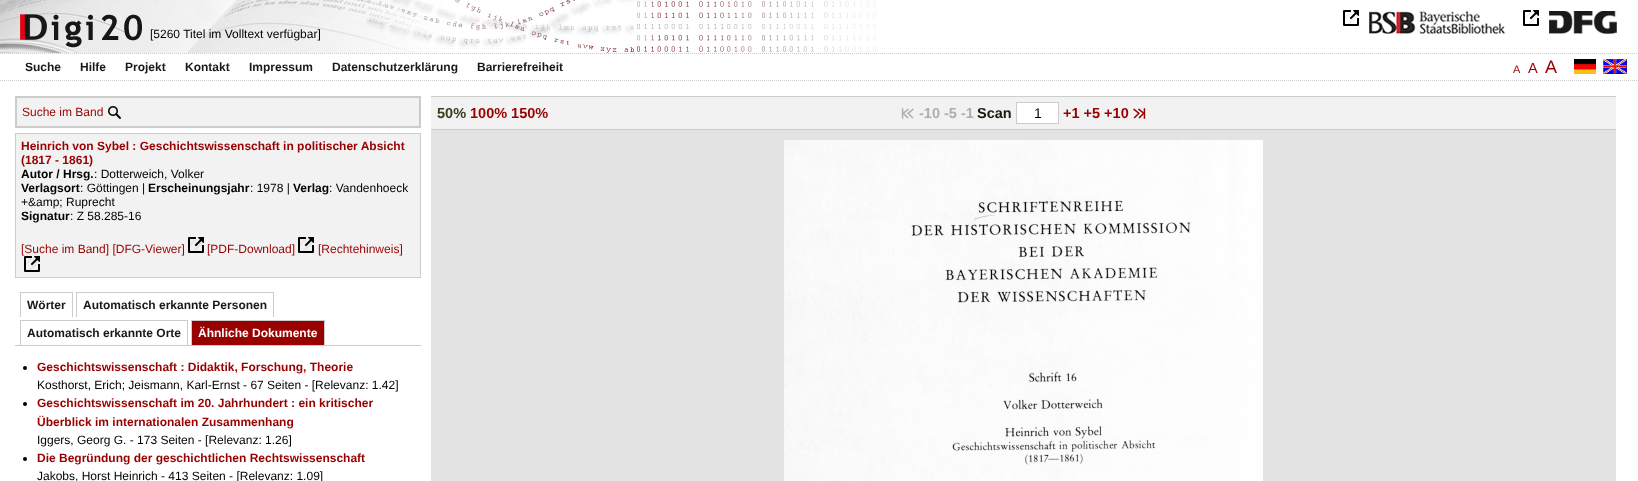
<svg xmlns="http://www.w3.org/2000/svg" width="1638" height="481">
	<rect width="100%" height="100%" fill="#FFFFFF" />
	<image x="0" y="0" width="877" height="53" href="assets/img1.png" />
	<text x="150" y="38" font-family="Liberation Sans" font-size="12" fill="#000000">[5260 Titel im Volltext verfügbar]</text>
	<image x="1369" y="10" width="136" height="24" href="assets/img2.png" />
	<image x="1343" y="10" width="16" height="16" href="assets/img3.png" />
	<image x="1549" y="11" width="68" height="23" href="assets/img4.png" />
	<image x="1523" y="10" width="16" height="16" href="assets/img3.png" />
	<path d="M0 53.5H1637" fill="none" stroke="#CCCCCC" stroke-dasharray="1 1" />
	<path d="M0 80.5H1637" fill="none" stroke="#CCCCCC" stroke-dasharray="1 1" />
	<g font-family="Liberation Sans" font-size="12" font-weight="700" fill="#181818">
		<text x="25" y="71">Suche</text>
		<text x="80" y="71">Hilfe</text>
		<text x="125" y="71">Projekt</text>
		<text x="185" y="71">Kontakt</text>
		<text x="249" y="71">Impressum</text>
		<text x="332" y="71">Datenschutzerklärung</text>
		<text x="477" y="71">Barrierefreiheit</text>
	</g>
	<text x="1513" y="73" font-family="Liberation Sans" font-size="11" fill="#990000">A</text>
	<text x="1528" y="73" font-family="Liberation Sans" font-size="14.5" fill="#990000">A</text>
	<text x="1545" y="73" font-family="Liberation Sans" font-size="18" fill="#990000">A</text>
	<image x="1574" y="59" width="22" height="15" href="assets/img5.png" />
	<image x="1603" y="59" width="24" height="15" href="assets/img6.png" />
	<rect x="16" y="97" width="404" height="30" fill="#F2F2F2" stroke="#CCCCCC" stroke-width="2" />
	<text x="22" y="116" font-family="Liberation Sans" font-size="12" fill="#990000">Suche im Band</text>
	<image x="108" y="106" width="13" height="13" href="assets/img7.png" />
	<rect x="15.5" y="133.5" width="405" height="144" fill="#F2F2F2" stroke="#CCCCCC" />
	<g font-family="Liberation Sans" font-size="12" font-weight="700" fill="#990000">
		<text x="21" y="150">Heinrich von Sybel : Geschichtswissenschaft in politischer Absicht</text>
		<text x="21" y="164">(1817 - 1861)</text>
	</g>
	<text x="21" y="178" font-family="Liberation Sans" font-size="12" font-weight="700" fill="#000000">Autor / Hrsg.</text>
	<text x="94" y="178" font-family="Liberation Sans" font-size="12" fill="#000000">: Dotterweich, Volker</text>
	<text x="21" y="192" font-family="Liberation Sans" font-size="12" font-weight="700" fill="#000000">Verlagsort</text>
	<text x="80" y="192" font-family="Liberation Sans" font-size="12" fill="#000000">: Göttingen |</text>
	<text x="148" y="192" font-family="Liberation Sans" font-size="12" font-weight="700" fill="#000000">Erscheinungsjahr</text>
	<text x="250" y="192" font-family="Liberation Sans" font-size="12" fill="#000000">: 1978 |</text>
	<text x="293" y="192" font-family="Liberation Sans" font-size="12" font-weight="700" fill="#000000">Verlag</text>
	<g font-family="Liberation Sans" font-size="12" fill="#000000">
		<text x="329" y="192">: Vandenhoeck</text>
		<text x="21" y="206">+&amp;amp; Ruprecht</text>
	</g>
	<text x="21" y="220" font-family="Liberation Sans" font-size="12" font-weight="700" fill="#000000">Signatur</text>
	<text x="70" y="220" font-family="Liberation Sans" font-size="12" fill="#000000">: Z 58.285-16</text>
	<text x="21" y="253" font-family="Liberation Sans" font-size="12" fill="#990000">[Suche im Band] [DFG-Viewer]</text>
	<image x="188" y="237" width="16" height="16" href="assets/img8.png" />
	<text x="207" y="253" font-family="Liberation Sans" font-size="12" fill="#990000">[PDF-Download]</text>
	<image x="298" y="237" width="16" height="16" href="assets/img8.png" />
	<text x="318" y="253" font-family="Liberation Sans" font-size="12" fill="#990000">[Rechtehinweis]</text>
	<image x="24" y="256" width="16" height="16" href="assets/img8.png" />
	<rect x="15" y="345" width="406" height="1" fill="#CCCCCC" />
	<text x="27" y="309" font-family="Liberation Sans" font-size="12" font-weight="700" fill="#181818">Wörter</text>
	<rect x="20" y="292" width="53" height="1" fill="#CCCCCC" />
	<rect x="72" y="292" width="1" height="25" fill="#CCCCCC" />
	<rect x="20" y="292" width="1" height="25" fill="#CCCCCC" />
	<text x="83" y="309" font-family="Liberation Sans" font-size="12" font-weight="700" fill="#181818">Automatisch erkannte Personen</text>
	<rect x="76" y="292" width="198" height="1" fill="#CCCCCC" />
	<rect x="273" y="292" width="1" height="25" fill="#CCCCCC" />
	<rect x="76" y="292" width="1" height="25" fill="#CCCCCC" />
	<text x="27" y="337" font-family="Liberation Sans" font-size="12" font-weight="700" fill="#181818">Automatisch erkannte Orte</text>
	<rect x="20" y="320" width="168" height="1" fill="#CCCCCC" />
	<rect x="187" y="320" width="1" height="25" fill="#CCCCCC" />
	<rect x="20" y="320" width="1" height="25" fill="#CCCCCC" />
	<rect x="192" y="321" width="132" height="24" fill="#990000" />
	<text x="198" y="337" font-family="Liberation Sans" font-size="12" font-weight="700" fill="#FFFFFF">Ähnliche Dokumente</text>
	<rect x="191" y="320" width="134" height="1" fill="#CCCCCC" />
	<rect x="324" y="320" width="1" height="25" fill="#CCCCCC" />
	<rect x="191" y="320" width="1" height="25" fill="#CCCCCC" />
	<circle cx="25" cy="368" r="2" fill="#000000" />
	<text x="37" y="371" font-family="Liberation Sans" font-size="12" font-weight="700" fill="#990000">Geschichtswissenschaft : Didaktik, Forschung, Theorie</text>
	<text x="37" y="389" font-family="Liberation Sans" font-size="12" fill="#000000">Kosthorst, Erich; Jeismann, Karl-Ernst - 67 Seiten - [Relevanz: 1.42]</text>
	<circle cx="25" cy="404" r="2" fill="#000000" />
	<g font-family="Liberation Sans" font-size="12" font-weight="700" fill="#990000">
		<text x="37" y="407">Geschichtswissenschaft im 20. Jahrhundert : ein kritischer</text>
		<text x="37" y="426">Überblick im internationalen Zusammenhang</text>
	</g>
	<text x="37" y="444" font-family="Liberation Sans" font-size="12" fill="#000000">Iggers, Georg G. - 173 Seiten - [Relevanz: 1.26]</text>
	<circle cx="25" cy="459" r="2" fill="#000000" />
	<text x="37" y="462" font-family="Liberation Sans" font-size="12" font-weight="700" fill="#990000">Die Begründung der geschichtlichen Rechtswissenschaft</text>
	<text x="37" y="480" font-family="Liberation Sans" font-size="12" fill="#000000">Jakobs, Horst Heinrich - 413 Seiten - [Relevanz: 1.09]</text>
	<rect x="431" y="97" width="1185" height="32" fill="#F2F2F2" />
	<rect x="431" y="96" width="1185" height="1" fill="#CCCCCC" />
	<rect x="431" y="129" width="1185" height="1" fill="#CCCCCC" />
	<text x="437" y="118" font-family="Liberation Sans" font-size="14.5" font-weight="700" fill="#333F1D">50%</text>
	<text x="470" y="118" font-family="Liberation Sans" font-size="14.5" font-weight="700" fill="#990000">100% 150%</text>
	<image x="901" y="108" width="13" height="11" href="assets/img9.png" />
	<text x="919" y="118" font-family="Liberation Sans" font-size="14.5" font-weight="700" fill="#AEAEAE">-10 -5 -1</text>
	<text x="977" y="118" font-family="Liberation Sans" font-size="14.5" font-weight="700" fill="#171C0D">Scan</text>
	<rect x="1016.5" y="102.5" width="42" height="21" fill="#FFFFFF" stroke="#CCCCCC" />
	<text x="1034" y="118" font-family="Liberation Sans" font-size="14" fill="#000000">1</text>
	<text x="1063" y="118" font-family="Liberation Sans" font-size="14.5" font-weight="700" fill="#990000">+1 +5 +10</text>
	<image x="1133" y="108" width="13" height="11" href="assets/img10.png" />
	<rect x="431" y="130" width="1185" height="351" fill="#E3E3E3" />
	<image x="784" y="140" width="479" height="341" href="assets/img11.png" />
</svg>
